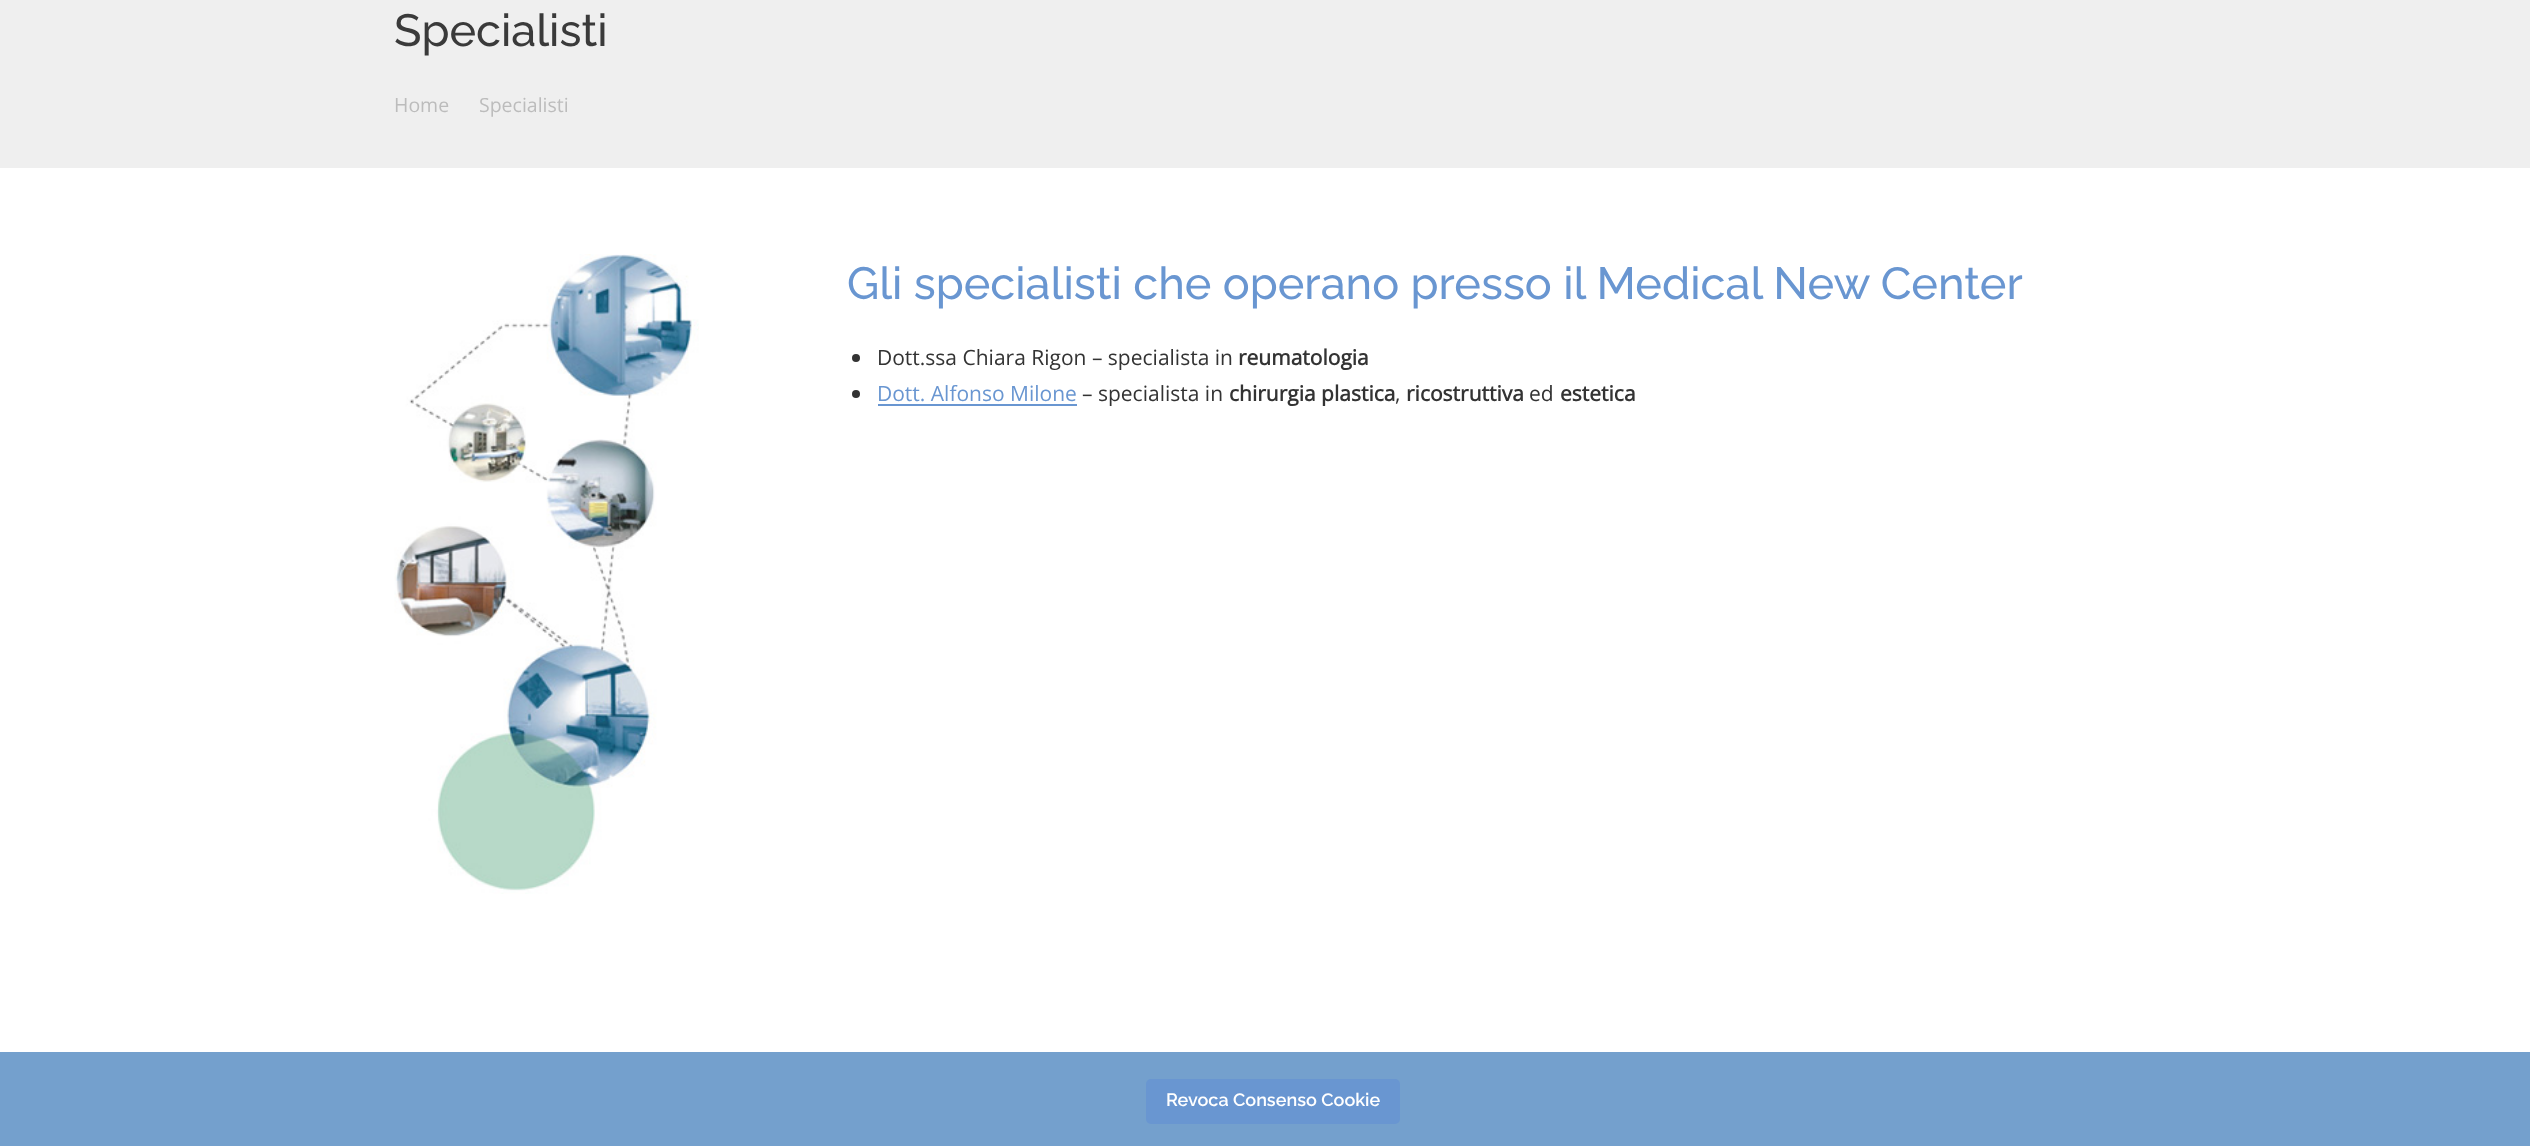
<svg xmlns="http://www.w3.org/2000/svg" width="2530" height="1146">
	<rect width="100%" height="100%" fill="#FFFFFF" />
	<rect x="0" y="0" width="2530" height="168" fill="#EFEFEF" />
	<text x="394" y="46" font-family="Raleway" font-size="45" font-weight="500" fill="#3A3A3A">Specialisti</text>
	<g font-family="Open Sans" font-size="19.5" fill="#BCBCBC">
		<text x="394" y="112">Home</text>
		<text x="479" y="112">Specialisti</text>
	</g>
	<image x="394" y="254" width="305" height="640" href="assets/img1.png" />
	<text x="847" y="299" font-family="Raleway" font-size="45" font-weight="500" fill="#6996D1">Gli specialisti che operano presso il Medical New Center</text>
	<circle cx="856" cy="358" r="4" fill="#333333" />
	<text x="877" y="365" font-family="Open Sans" font-size="21" fill="#333333">Dott.ssa Chiara Rigon – specialista in</text>
	<text x="1238" y="365" font-family="Open Sans" font-size="21" font-weight="700" fill="#333333">reumatologia</text>
	<circle cx="856" cy="394" r="4" fill="#333333" />
	<text x="877" y="401" font-family="Open Sans" font-size="21" fill="#6996D1">Dott. Alfonso Milone</text>
	<rect x="878" y="404" width="199" height="2" fill="#6996D1" />
	<text x="1082" y="401" font-family="Open Sans" font-size="21" fill="#333333">– specialista in</text>
	<g font-family="Open Sans" font-size="21" font-weight="700" fill="#333333">
		<text x="1229" y="401">chirurgia plastica</text>
		<text x="1406" y="401">ricostruttiva</text>
	</g>
	<text x="1529" y="401" font-family="Open Sans" font-size="21" fill="#333333">ed</text>
	<text x="1560" y="401" font-family="Open Sans" font-size="21" font-weight="700" fill="#333333">estetica</text>
	<text x="1395" y="401" font-family="Open Sans" font-size="21" fill="#333333">,</text>
	<rect x="0" y="1052" width="2530" height="94" fill="#74A0CD" />
	<rect x="1146" y="1079" width="254" height="45" rx="5" fill="#6996D1" />
	<text x="1166" y="1106" font-family="Raleway" font-size="18" font-weight="600" fill="#FFFFFF">Revoca Consenso Cookie</text>
</svg>
